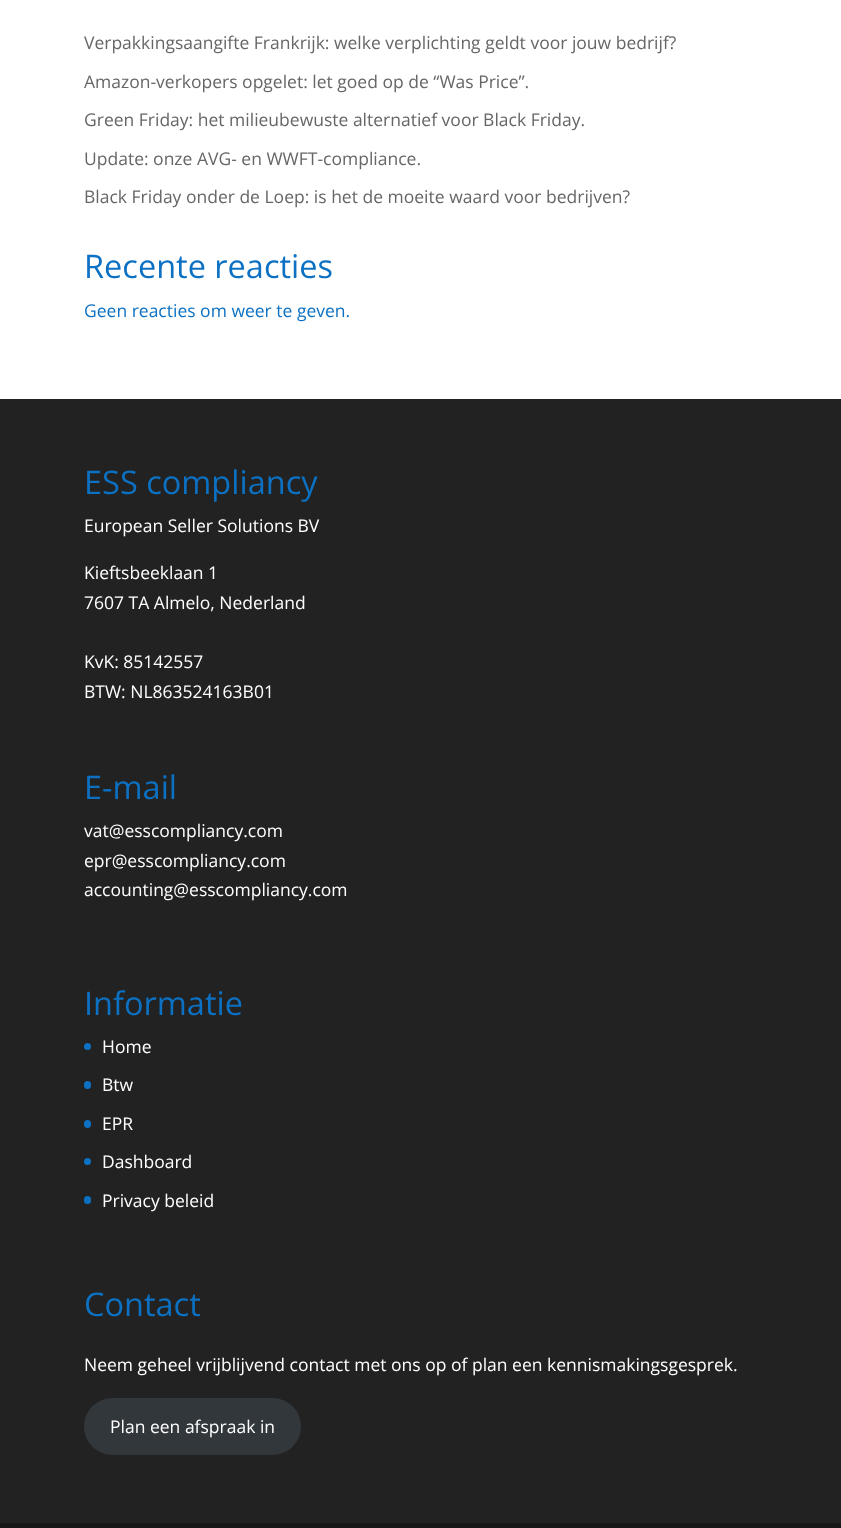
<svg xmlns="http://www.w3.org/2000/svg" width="841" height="1528">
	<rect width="100%" height="100%" fill="#FFFFFF" />
	<g font-family="Open Sans" font-size="17.5" fill="#666666">
		<text x="84" y="49">Verpakkingsaangifte Frankrijk: welke verplichting geldt voor jouw bedrijf?</text>
		<text x="84" y="88">Amazon-verkopers opgelet: let goed op de “Was Price”.</text>
		<text x="84" y="126">Green Friday: het milieubewuste alternatief voor Black Friday.</text>
		<text x="84" y="165">Update: onze AVG- en WWFT-compliance.</text>
		<text x="84" y="203">Black Friday onder de Loep: is het de moeite waard voor bedrijven?</text>
	</g>
	<text x="84" y="278" font-family="Open Sans" font-size="32.5" fill="#0C71C3">Recente reacties</text>
	<text x="84" y="317" font-family="Open Sans" font-size="17.5" fill="#0C71C3">Geen reacties om weer te geven.</text>
	<rect x="0" y="399" width="841" height="1124" fill="#222222" />
	<text x="84" y="494" font-family="Open Sans" font-size="32.5" fill="#0C71C3">ESS compliancy</text>
	<g font-family="Open Sans" font-size="17.5" fill="#FFFFFF">
		<text x="84" y="532">European Seller Solutions BV</text>
		<text x="84" y="579">Kieftsbeeklaan 1</text>
		<text x="84" y="609">7607 TA Almelo, Nederland</text>
		<text x="84" y="668">KvK: 85142557</text>
		<text x="84" y="698">BTW: NL863524163B01</text>
	</g>
	<text x="84" y="799" font-family="Open Sans" font-size="32.5" fill="#0C71C3">E-mail</text>
	<g font-family="Open Sans" font-size="17.5" fill="#FFFFFF">
		<text x="84" y="837">vat@esscompliancy.com</text>
		<text x="84" y="867">epr@esscompliancy.com</text>
		<text x="84" y="896">accounting@esscompliancy.com</text>
	</g>
	<text x="84" y="1015" font-family="Open Sans" font-size="32.5" fill="#0C71C3">Informatie</text>
	<circle cx="87.5" cy="1046.5" r="3.5" fill="#0C71C3" />
	<text x="102" y="1053" font-family="Open Sans" font-size="17.5" fill="#FFFFFF">Home</text>
	<rect x="84" y="1081" width="7" height="8" rx="3.5" fill="#0C71C3" />
	<text x="102" y="1091" font-family="Open Sans" font-size="17.5" fill="#FFFFFF">Btw</text>
	<rect x="84" y="1120" width="7" height="8" rx="3.5" fill="#0C71C3" />
	<text x="102" y="1130" font-family="Open Sans" font-size="17.5" fill="#FFFFFF">EPR</text>
	<circle cx="87.5" cy="1161.5" r="3.5" fill="#0C71C3" />
	<text x="102" y="1168" font-family="Open Sans" font-size="17.5" fill="#FFFFFF">Dashboard</text>
	<rect x="84" y="1196" width="7" height="8" rx="3.5" fill="#0C71C3" />
	<text x="102" y="1207" font-family="Open Sans" font-size="17.5" fill="#FFFFFF">Privacy beleid</text>
	<text x="84" y="1316" font-family="Open Sans" font-size="32.5" fill="#0C71C3">Contact</text>
	<text x="84" y="1371" font-family="Open Sans" font-size="17.5" fill="#FFFFFF">Neem geheel vrijblijvend contact met ons op of plan een kennismakingsgesprek.</text>
	<rect x="84" y="1398" width="217" height="57" rx="28.5" fill="#32373C" />
	<text x="110" y="1433" font-family="Open Sans" font-size="17.5" fill="#FFFFFF">Plan een afspraak in</text>
	<rect x="0" y="1523" width="841" height="5" fill="#171717" />
</svg>
